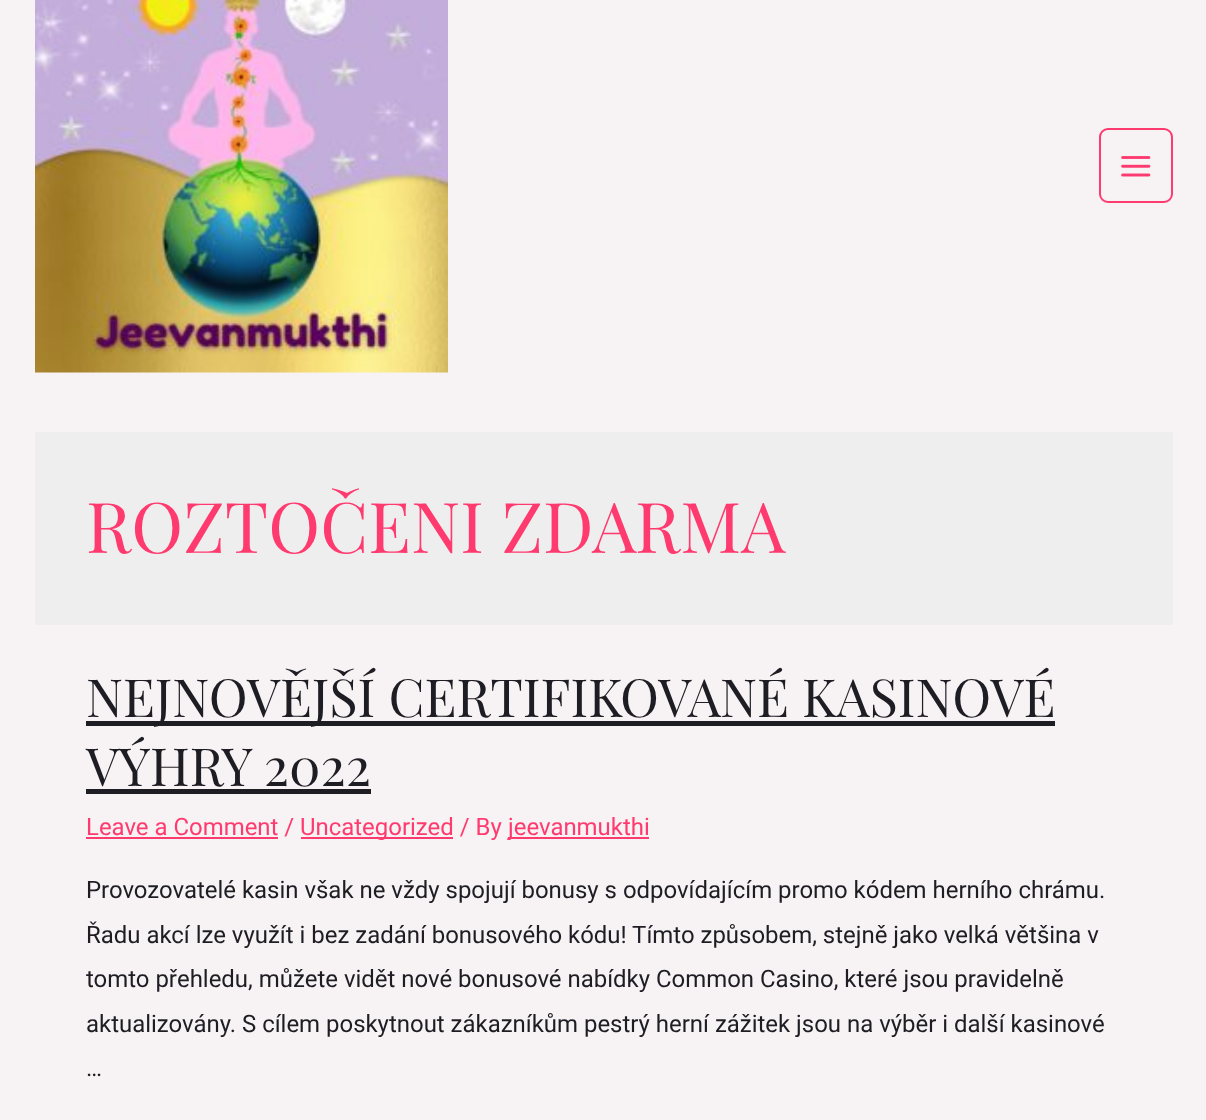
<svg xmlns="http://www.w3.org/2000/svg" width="1206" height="1120">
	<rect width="100%" height="100%" fill="#F7F2F3" />
	<image x="35" y="0" width="413" height="373" href="assets/img1.png" />
	<rect x="1100" y="129" width="72" height="73" rx="8" fill="none" stroke="#FF3A6F" stroke-width="2" />
	<image x="1121" y="156" width="30" height="21" href="assets/img2.png" />
	<rect x="35" y="432" width="1138" height="193" fill="#EEEEEE" />
	<text x="86" y="553" font-family="Playfair Display" font-size="70" fill="#FF3A6F">ROZTOČENI ZDARMA</text>
	<rect x="86" y="721" width="969" height="5" fill="#1D1D23" />
	<g font-family="Playfair Display" font-size="52.5" fill="#1D1D23">
		<text x="86" y="717">NEJNOVĚJŠÍ CERTIFIKOVANÉ KASINOVÉ</text>
		<text x="86" y="786">VÝHRY 2022</text>
	</g>
	<rect x="86" y="789" width="285" height="5" fill="#1D1D23" />
	<text x="86" y="835" font-family="Roboto" font-size="23.95" fill="#FF3A6F">Leave a Comment /</text>
	<rect x="86" y="837" width="192" height="2" fill="#FF3A6F" />
	<rect x="301" y="837" width="152" height="2" fill="#FF3A6F" />
	<text x="300" y="835" font-family="Roboto" font-size="23.95" fill="#FF3A6F">Uncategorized / By</text>
	<rect x="508" y="837" width="141" height="2" fill="#FF3A6F" />
	<text x="508" y="835" font-family="Roboto" font-size="23.95" fill="#FF3A6F">jeevanmukthi</text>
	<g font-family="Roboto" font-size="23.95" fill="#1D1D23">
		<text x="86" y="898">Provozovatelé kasin však ne vždy spojují bonusy s odpovídajícím promo kódem herního chrámu.</text>
		<text x="86" y="943">Řadu akcí lze využít i bez zadání bonusového kódu! Tímto způsobem, stejně jako velká většina v</text>
		<text x="86" y="987">tomto přehledu, můžete vidět nové bonusové nabídky Common Casino, které jsou pravidelně</text>
		<text x="86" y="1032">aktualizovány. S cílem poskytnout zákazníkům pestrý herní zážitek jsou na výběr i další kasinové</text>
		<text x="86" y="1076">…</text>
	</g>
</svg>
